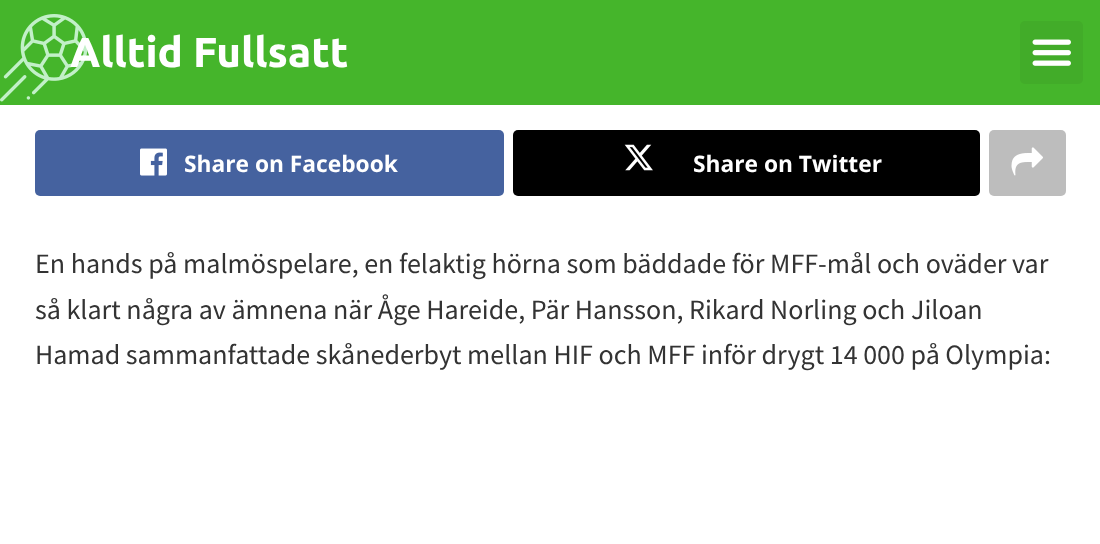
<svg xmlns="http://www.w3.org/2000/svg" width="1100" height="544">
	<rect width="100%" height="100%" fill="#FFFFFF" />
	<rect x="0" y="0" width="1100" height="105" fill="#45B52B" />
	<image x="0" y="14" width="88" height="88" href="assets/img1.png" />
	<text x="70" y="67" font-family="Ubuntu" font-size="42" font-weight="700" fill="#FFFFFF">Alltid Fullsatt</text>
	<rect x="1020" y="21" width="63" height="63" rx="5" fill="#42AC29" />
	<image x="1032" y="39" width="39" height="27" href="assets/img2.png" />
	<rect x="35" y="130" width="469" height="66" rx="5" fill="#45629F" />
	<image x="140" y="148" width="27" height="28" href="assets/img3.png" />
	<text x="184" y="172" font-family="Open Sans" font-size="22.75" font-weight="700" fill="#FFFFFF">Share on Facebook</text>
	<rect x="513" y="130" width="467" height="66" rx="5" fill="#000000" />
	<image x="624" y="144" width="29" height="27" href="assets/img4.png" />
	<text x="693" y="172" font-family="Open Sans" font-size="22.75" font-weight="700" fill="#FFFFFF">Share on Twitter</text>
	<rect x="989" y="130" width="77" height="66" rx="5" fill="#BDBDBD" />
	<image x="1011" y="147" width="32" height="29" href="assets/img5.png" />
	<g font-family="Source Sans Pro" font-size="28" fill="#333333">
		<text x="35" y="273">En hands på malmöspelare, en felaktig hörna som bäddade för MFF-mål och oväder var</text>
		<text x="35" y="319">så klart några av ämnena när Åge Hareide, Pär Hansson, Rikard Norling och Jiloan</text>
		<text x="35" y="364">Hamad sammanfattade skånederbyt mellan HIF och MFF inför drygt 14 000 på Olympia:</text>
	</g>
</svg>
